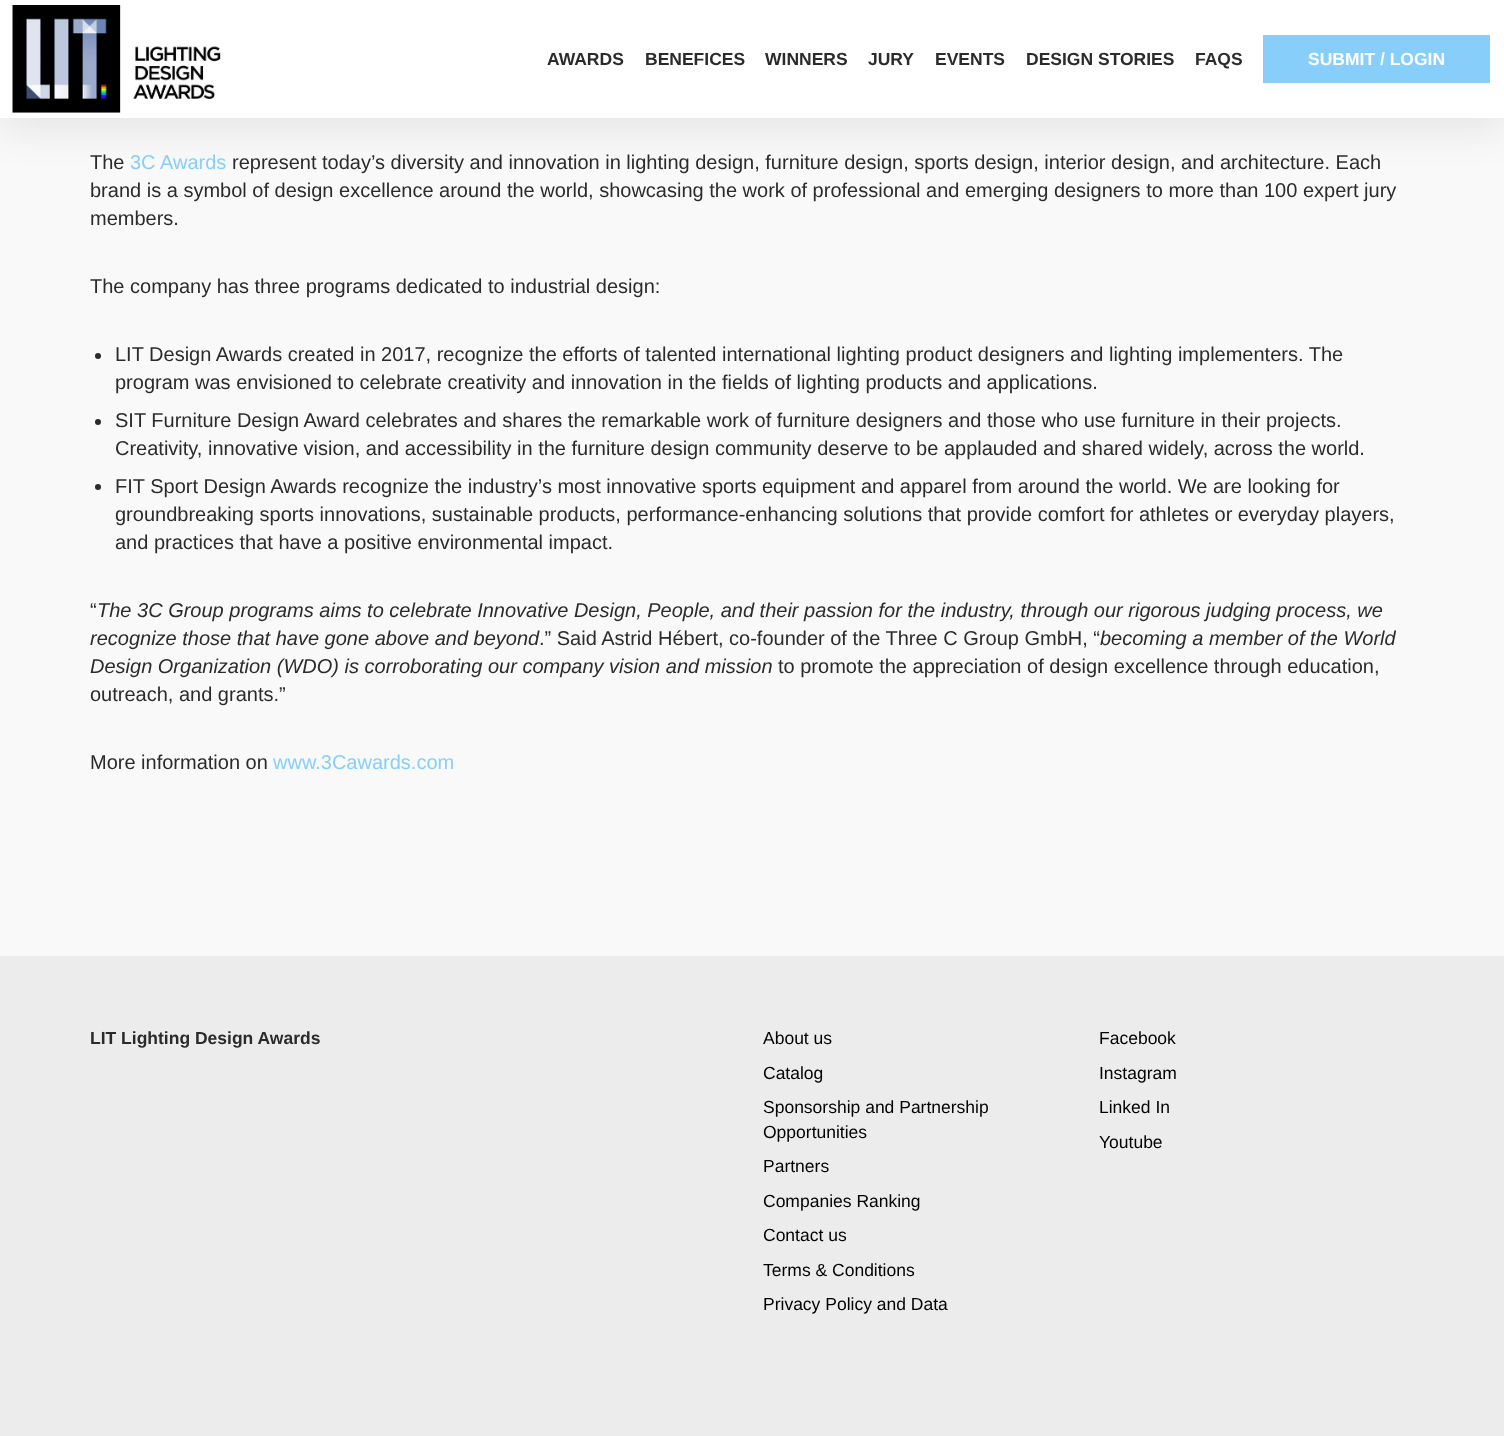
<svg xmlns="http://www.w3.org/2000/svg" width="1504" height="1436">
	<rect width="100%" height="100%" fill="#F9F9F9" />
	<rect x="0" y="14" width="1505" height="117" fill="#000000" fill-opacity="0.08" filter="blur(19px)" />
	<rect x="0" y="0" width="1504" height="118" fill="#FFFFFF" />
	<image x="12" y="5" width="209" height="108" href="assets/img1.png" />
	<g font-family="Liberation Sans" font-size="17.5" font-weight="700" fill="#2A2B2D">
		<text x="547" y="65">AWARDS</text>
		<text x="645" y="65">BENEFICES</text>
		<text x="765" y="65">WINNERS</text>
		<text x="868" y="65">JURY</text>
		<text x="935" y="65">EVENTS</text>
		<text x="1026" y="65">DESIGN STORIES</text>
		<text x="1195" y="65">FAQS</text>
	</g>
	<rect x="1263" y="35" width="227" height="48" fill="#87CEFA" />
	<text x="1308" y="65" font-family="Liberation Sans" font-size="17.5" font-weight="700" fill="#FFFFFF">SUBMIT / LOGIN</text>
	<text x="90" y="169" font-family="Liberation Sans" font-size="20" fill="#2A2B2D">The</text>
	<text x="130" y="169" font-family="Liberation Sans" font-size="20" fill="#87CEFA">3C Awards</text>
	<g font-family="Liberation Sans" font-size="20" fill="#2A2B2D">
		<text x="232" y="169">represent today’s diversity and innovation in lighting design, furniture design, sports design, interior design, and architecture. Each</text>
		<text x="90" y="197">brand is a symbol of design excellence around the world, showcasing the work of professional and emerging designers to more than 100 expert jury</text>
		<text x="90" y="225">members.</text>
		<text x="90" y="293">The company has three programs dedicated to industrial design:</text>
	</g>
	<circle cx="98" cy="356" r="3" fill="#2A2B2D" />
	<g font-family="Liberation Sans" font-size="20" fill="#2A2B2D">
		<text x="115" y="361">LIT Design Awards created in 2017, recognize the efforts of talented international lighting product designers and lighting implementers. The</text>
		<text x="115" y="389">program was envisioned to celebrate creativity and innovation in the fields of lighting products and applications.</text>
	</g>
	<circle cx="98" cy="422" r="3" fill="#2A2B2D" />
	<g font-family="Liberation Sans" font-size="20" fill="#2A2B2D">
		<text x="115" y="427">SIT Furniture Design Award celebrates and shares the remarkable work of furniture designers and those who use furniture in their projects.</text>
		<text x="115" y="455">Creativity, innovative vision, and accessibility in the furniture design community deserve to be applauded and shared widely, across the world.</text>
	</g>
	<circle cx="98" cy="487" r="3" fill="#2A2B2D" />
	<g font-family="Liberation Sans" font-size="20" fill="#2A2B2D">
		<text x="115" y="493">FIT Sport Design Awards recognize the industry’s most innovative sports equipment and apparel from around the world. We are looking for</text>
		<text x="115" y="521">groundbreaking sports innovations, sustainable products, performance-enhancing solutions that provide comfort for athletes or everyday players,</text>
		<text x="115" y="549">and practices that have a positive environmental impact.</text>
		<text x="90" y="617">“</text>
	</g>
	<g font-family="Liberation Sans" font-size="20" font-style="italic" fill="#2A2B2D">
		<text x="97" y="617">The 3C Group programs aims to celebrate Innovative Design, People, and their passion for the industry, through our rigorous judging process, we</text>
		<text x="90" y="645">recognize those that have gone above and beyond</text>
	</g>
	<text x="539" y="645" font-family="Liberation Sans" font-size="20" fill="#2A2B2D">.” Said Astrid Hébert, co-founder of the Three C Group GmbH, “</text>
	<g font-family="Liberation Sans" font-size="20" font-style="italic" fill="#2A2B2D">
		<text x="1100" y="645">becoming a member of the World</text>
		<text x="90" y="673">Design Organization (WDO) is corroborating our company vision and mission</text>
	</g>
	<g font-family="Liberation Sans" font-size="20" fill="#2A2B2D">
		<text x="778" y="673">to promote the appreciation of design excellence through education,</text>
		<text x="90" y="701">outreach, and grants.”</text>
		<text x="90" y="769">More information on</text>
	</g>
	<text x="273" y="769" font-family="Liberation Sans" font-size="20" fill="#87CEFA">www.3Cawards.com</text>
	<rect x="0" y="956" width="1504" height="480" fill="#ECECEC" />
	<text x="90" y="1044" font-family="Liberation Sans" font-size="17.5" font-weight="700" fill="#2A2B2D">LIT Lighting Design Awards</text>
	<g font-family="Liberation Sans" font-size="17.5" fill="#000000">
		<text x="763" y="1044">About us</text>
		<text x="763" y="1079">Catalog</text>
		<text x="763" y="1113">Sponsorship and Partnership</text>
		<text x="763" y="1138">Opportunities</text>
		<text x="763" y="1172">Partners</text>
		<text x="763" y="1207">Companies Ranking</text>
		<text x="763" y="1241">Contact us</text>
		<text x="763" y="1276">Terms &amp; Conditions</text>
		<text x="763" y="1310">Privacy Policy and Data</text>
		<text x="1099" y="1044">Facebook</text>
		<text x="1099" y="1079">Instagram</text>
		<text x="1099" y="1113">Linked In</text>
		<text x="1099" y="1148">Youtube</text>
	</g>
</svg>
